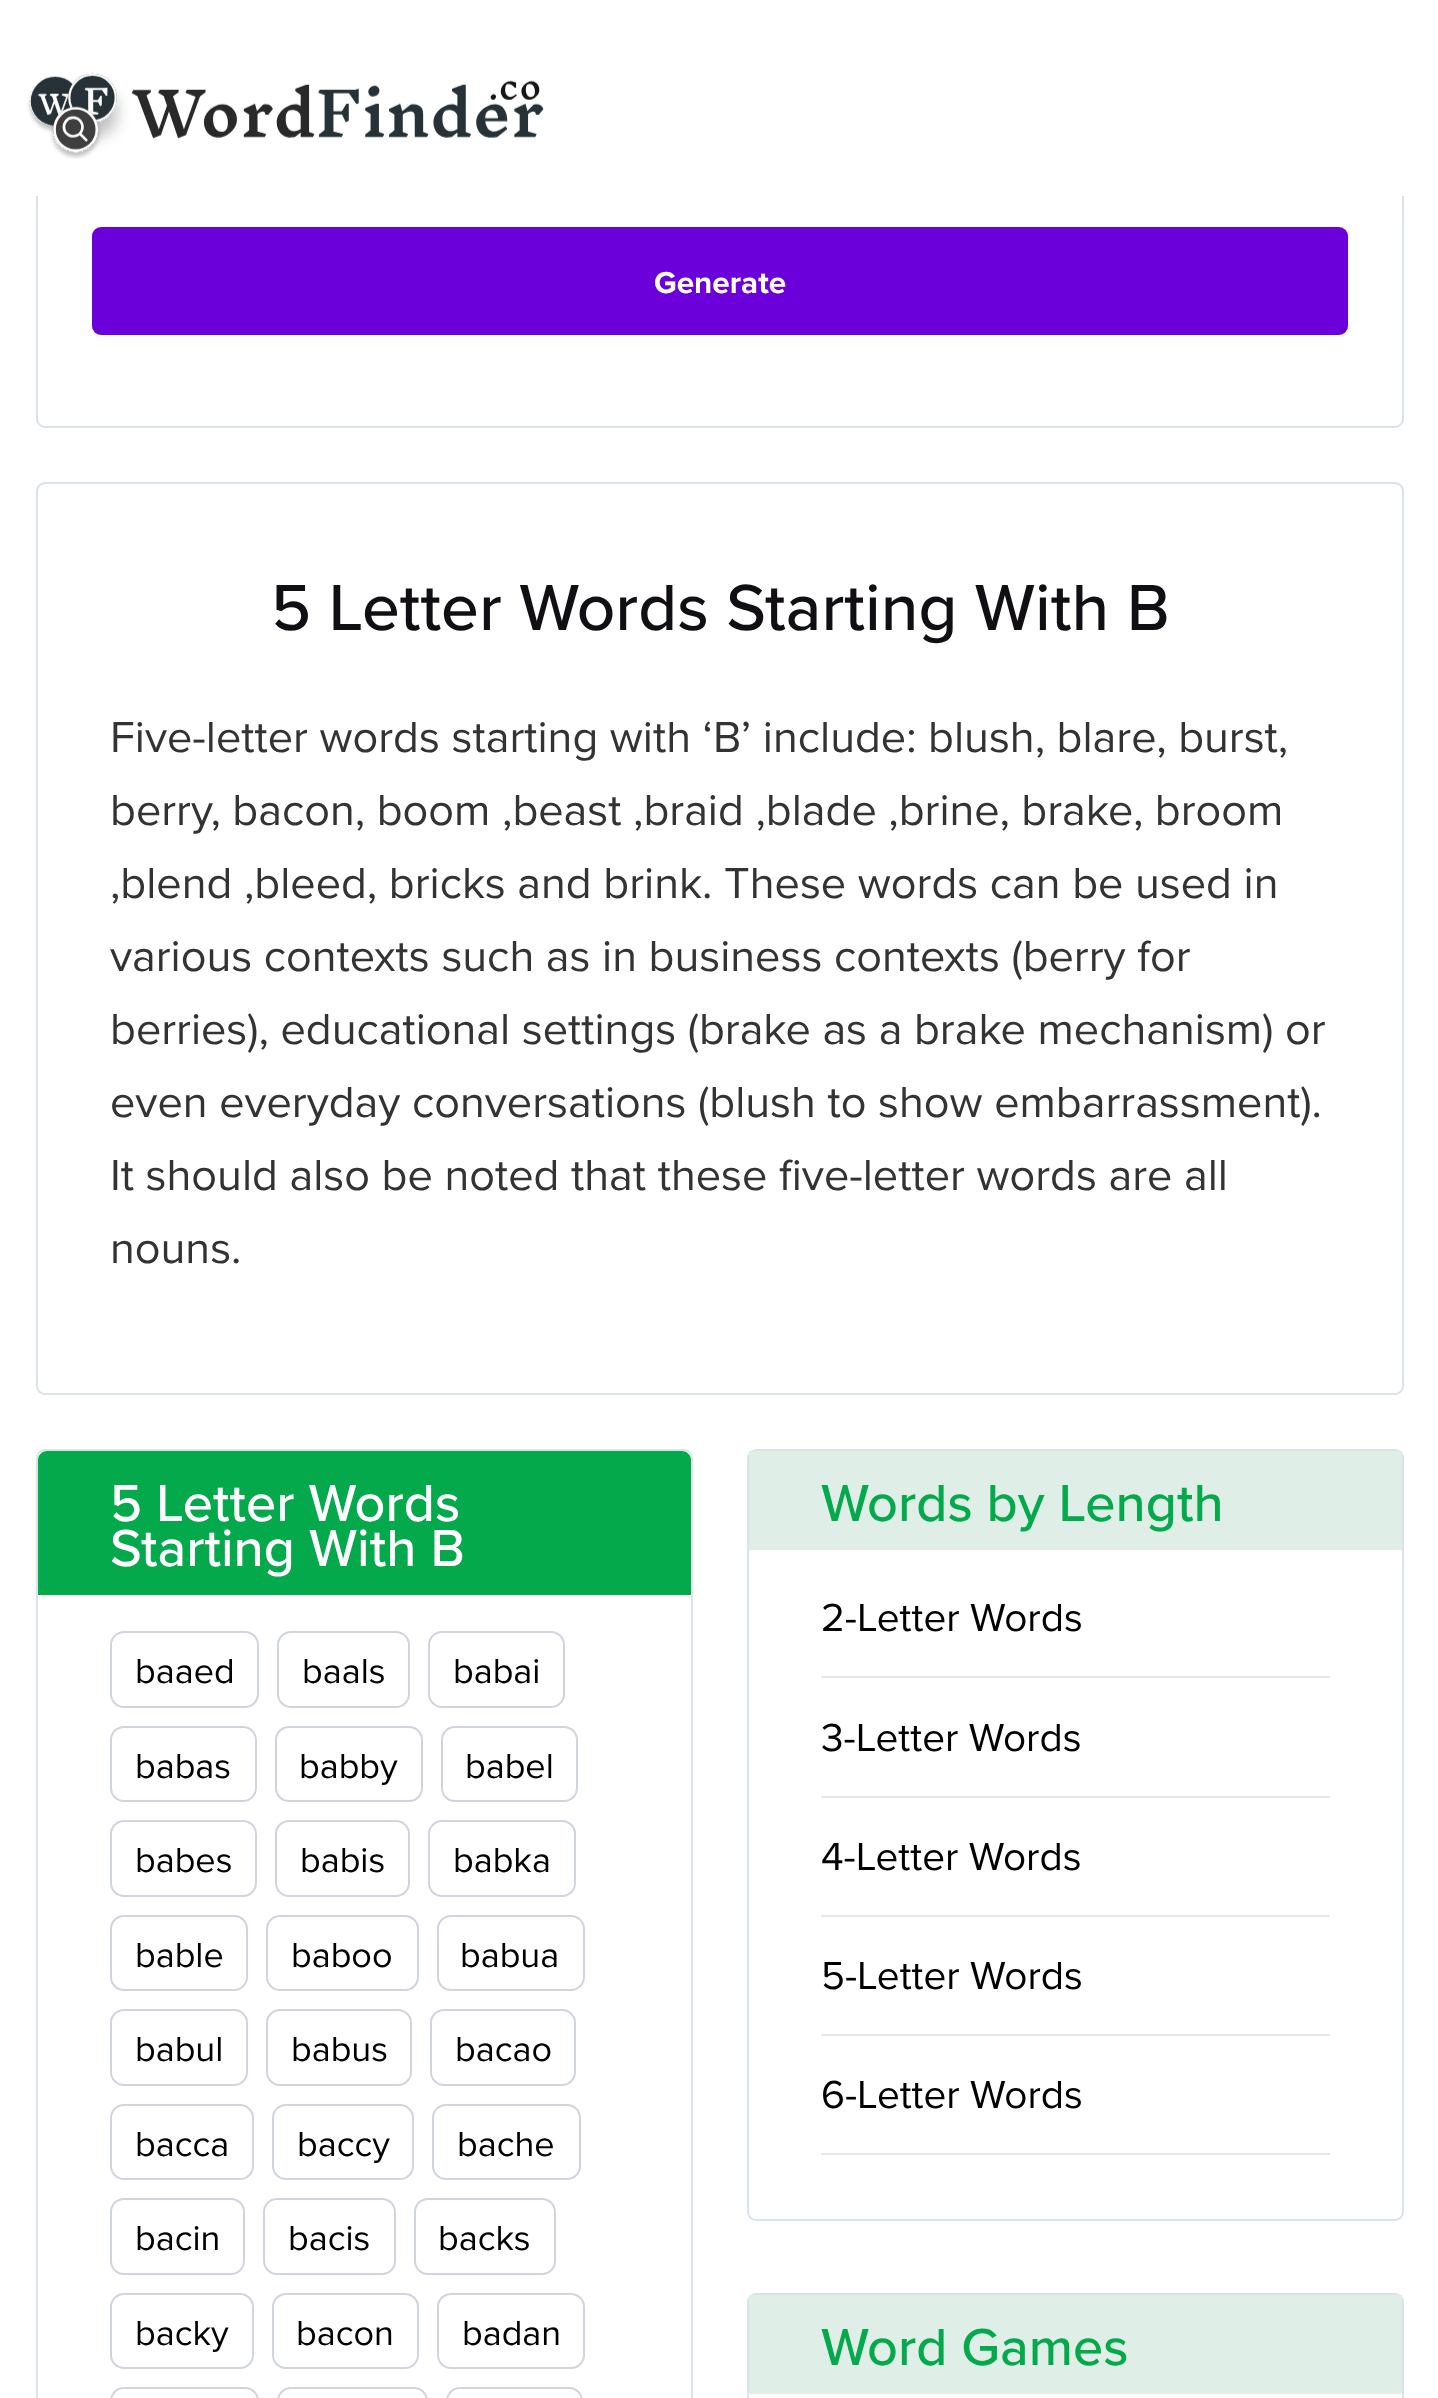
<svg xmlns="http://www.w3.org/2000/svg" width="1438" height="2398">
	<rect width="100%" height="100%" fill="#FFFFFF" />
	<rect x="37" y="-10" width="1366" height="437" rx="8" fill="none" stroke="#DAE3EA" stroke-width="2" />
	<rect x="36" y="0" width="1368" height="196" fill="#FFFFFF" />
	<image x="27" y="72" width="517" height="87" href="assets/img1.png" />
	<rect x="92" y="227" width="1256" height="108" rx="9" fill="#6B00DA" />
	<text x="654" y="293" font-family="Proxima Nova" font-size="31.5" font-weight="700" fill="#FFFFFF">Generate</text>
	<rect x="37" y="483" width="1366" height="911" rx="8" fill="none" stroke="#DAE3EA" stroke-width="2" />
	<text x="271" y="630" font-family="Proxima Nova" font-size="67.5" font-weight="500" fill="#110F14">5 Letter Words Starting With B</text>
	<g font-family="Proxima Nova" font-size="45" fill="#333333">
		<text x="110" y="752">Five-letter words starting with ‘B’ include: blush, blare, burst,</text>
		<text x="110" y="825">berry, bacon, boom ,beast ,braid ,blade ,brine, brake, broom</text>
		<text x="110" y="898">,blend ,bleed, bricks and brink. These words can be used in</text>
		<text x="110" y="971">various contexts such as in business contexts (berry for</text>
		<text x="110" y="1044">berries), educational settings (brake as a brake mechanism) or</text>
		<text x="110" y="1117">even everyday conversations (blush to show embarrassment).</text>
		<text x="110" y="1190">It should also be noted that these five-letter words are all</text>
		<text x="110" y="1263">nouns.</text>
	</g>
	<rect x="37" y="1450" width="655" height="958" rx="8" fill="none" stroke="#DAE3EA" stroke-width="2" />
	<path d="M47 1451H682C687 1451 691 1455 691 1460V1595H38V1460C38 1455 42 1451 47 1451Z" fill="#04A94B" />
	<g font-family="Proxima Nova" font-size="54" font-weight="500" fill="#FFFFFF">
		<text x="110" y="1521">5 Letter Words</text>
		<text x="110" y="1566">Starting With B</text>
	</g>
	<rect x="111" y="1632" width="147" height="75" rx="13" fill="none" stroke="#D0D5DD" stroke-width="2" />
	<text x="135" y="1683" font-family="Proxima Nova" font-size="36" fill="#000000">baaed</text>
	<rect x="278" y="1632" width="131" height="75" rx="13" fill="none" stroke="#D0D5DD" stroke-width="2" />
	<text x="302" y="1683" font-family="Proxima Nova" font-size="36" fill="#000000">baals</text>
	<rect x="429" y="1632" width="135" height="75" rx="13" fill="none" stroke="#D0D5DD" stroke-width="2" />
	<text x="453" y="1683" font-family="Proxima Nova" font-size="36" fill="#000000">babai</text>
	<rect x="111" y="1727" width="145" height="74" rx="13" fill="none" stroke="#D0D5DD" stroke-width="2" />
	<text x="135" y="1778" font-family="Proxima Nova" font-size="36" fill="#000000">babas</text>
	<rect x="276" y="1727" width="146" height="74" rx="13" fill="none" stroke="#D0D5DD" stroke-width="2" />
	<text x="299" y="1778" font-family="Proxima Nova" font-size="36" fill="#000000">babby</text>
	<rect x="442" y="1727" width="135" height="74" rx="13" fill="none" stroke="#D0D5DD" stroke-width="2" />
	<text x="465" y="1778" font-family="Proxima Nova" font-size="36" fill="#000000">babel</text>
	<rect x="111" y="1821" width="145" height="75" rx="13" fill="none" stroke="#D0D5DD" stroke-width="2" />
	<text x="135" y="1872" font-family="Proxima Nova" font-size="36" fill="#000000">babes</text>
	<rect x="276" y="1821" width="133" height="75" rx="13" fill="none" stroke="#D0D5DD" stroke-width="2" />
	<text x="300" y="1872" font-family="Proxima Nova" font-size="36" fill="#000000">babis</text>
	<rect x="429" y="1821" width="146" height="75" rx="13" fill="none" stroke="#D0D5DD" stroke-width="2" />
	<text x="453" y="1872" font-family="Proxima Nova" font-size="36" fill="#000000">babka</text>
	<rect x="111" y="1916" width="136" height="74" rx="13" fill="none" stroke="#D0D5DD" stroke-width="2" />
	<text x="135" y="1967" font-family="Proxima Nova" font-size="36" fill="#000000">bable</text>
	<rect x="267" y="1916" width="151" height="74" rx="13" fill="none" stroke="#D0D5DD" stroke-width="2" />
	<text x="291" y="1967" font-family="Proxima Nova" font-size="36" fill="#000000">baboo</text>
	<rect x="438" y="1916" width="146" height="74" rx="13" fill="none" stroke="#D0D5DD" stroke-width="2" />
	<text x="460" y="1967" font-family="Proxima Nova" font-size="36" fill="#000000">babua</text>
	<rect x="111" y="2010" width="136" height="75" rx="13" fill="none" stroke="#D0D5DD" stroke-width="2" />
	<text x="135" y="2061" font-family="Proxima Nova" font-size="36" fill="#000000">babul</text>
	<rect x="267" y="2010" width="144" height="75" rx="13" fill="none" stroke="#D0D5DD" stroke-width="2" />
	<text x="291" y="2061" font-family="Proxima Nova" font-size="36" fill="#000000">babus</text>
	<rect x="431" y="2010" width="144" height="75" rx="13" fill="none" stroke="#D0D5DD" stroke-width="2" />
	<text x="455" y="2061" font-family="Proxima Nova" font-size="36" fill="#000000">bacao</text>
	<rect x="111" y="2105" width="142" height="74" rx="13" fill="none" stroke="#D0D5DD" stroke-width="2" />
	<text x="135" y="2156" font-family="Proxima Nova" font-size="36" fill="#000000">bacca</text>
	<rect x="273" y="2105" width="140" height="74" rx="13" fill="none" stroke="#D0D5DD" stroke-width="2" />
	<text x="297" y="2156" font-family="Proxima Nova" font-size="36" fill="#000000">baccy</text>
	<rect x="433" y="2105" width="147" height="74" rx="13" fill="none" stroke="#D0D5DD" stroke-width="2" />
	<text x="457" y="2156" font-family="Proxima Nova" font-size="36" fill="#000000">bache</text>
	<rect x="111" y="2199" width="133" height="75" rx="13" fill="none" stroke="#D0D5DD" stroke-width="2" />
	<text x="135" y="2250" font-family="Proxima Nova" font-size="36" fill="#000000">bacin</text>
	<rect x="264" y="2199" width="131" height="75" rx="13" fill="none" stroke="#D0D5DD" stroke-width="2" />
	<text x="288" y="2250" font-family="Proxima Nova" font-size="36" fill="#000000">bacis</text>
	<rect x="415" y="2199" width="140" height="75" rx="13" fill="none" stroke="#D0D5DD" stroke-width="2" />
	<text x="438" y="2250" font-family="Proxima Nova" font-size="36" fill="#000000">backs</text>
	<rect x="111" y="2294" width="142" height="74" rx="13" fill="none" stroke="#D0D5DD" stroke-width="2" />
	<text x="135" y="2345" font-family="Proxima Nova" font-size="36" fill="#000000">backy</text>
	<rect x="273" y="2294" width="145" height="74" rx="13" fill="none" stroke="#D0D5DD" stroke-width="2" />
	<text x="296" y="2345" font-family="Proxima Nova" font-size="36" fill="#000000">bacon</text>
	<rect x="438" y="2294" width="146" height="74" rx="13" fill="none" stroke="#D0D5DD" stroke-width="2" />
	<text x="462" y="2345" font-family="Proxima Nova" font-size="36" fill="#000000">badan</text>
	<rect x="111" y="2388" width="147" height="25" rx="13" fill="none" stroke="#D0D5DD" stroke-width="2" />
	<rect x="278" y="2388" width="149" height="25" rx="13" fill="none" stroke="#D0D5DD" stroke-width="2" />
	<rect x="447" y="2388" width="135" height="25" rx="13" fill="none" stroke="#D0D5DD" stroke-width="2" />
	<rect x="748" y="1450" width="655" height="770" rx="8" fill="none" stroke="#DAE3EA" stroke-width="2" />
	<rect x="749" y="1451" width="653" height="99" fill="#DFEFE7" />
	<text x="821" y="1521" font-family="Proxima Nova" font-size="54" font-weight="500" fill="#04A94B">Words by Length</text>
	<rect x="821" y="1676" width="509" height="2" fill="#E5E7EB" />
	<text x="821" y="1631" font-family="Proxima Nova" font-size="40.5" fill="#000000">2-Letter Words</text>
	<rect x="821" y="1796" width="509" height="2" fill="#E5E7EB" />
	<text x="821" y="1751" font-family="Proxima Nova" font-size="40.5" fill="#000000">3-Letter Words</text>
	<rect x="821" y="1915" width="509" height="2" fill="#E5E7EB" />
	<text x="821" y="1870" font-family="Proxima Nova" font-size="40.5" fill="#000000">4-Letter Words</text>
	<rect x="821" y="2034" width="509" height="2" fill="#E5E7EB" />
	<text x="821" y="1989" font-family="Proxima Nova" font-size="40.5" fill="#000000">5-Letter Words</text>
	<rect x="821" y="2153" width="509" height="2" fill="#E5E7EB" />
	<text x="821" y="2108" font-family="Proxima Nova" font-size="40.5" fill="#000000">6-Letter Words</text>
	<rect x="748" y="2294" width="655" height="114" rx="8" fill="none" stroke="#DAE3EA" stroke-width="2" />
	<rect x="749" y="2295" width="653" height="99" fill="#DFEFE7" />
	<text x="821" y="2365" font-family="Proxima Nova" font-size="54" font-weight="500" fill="#04A94B">Word Games</text>
</svg>
